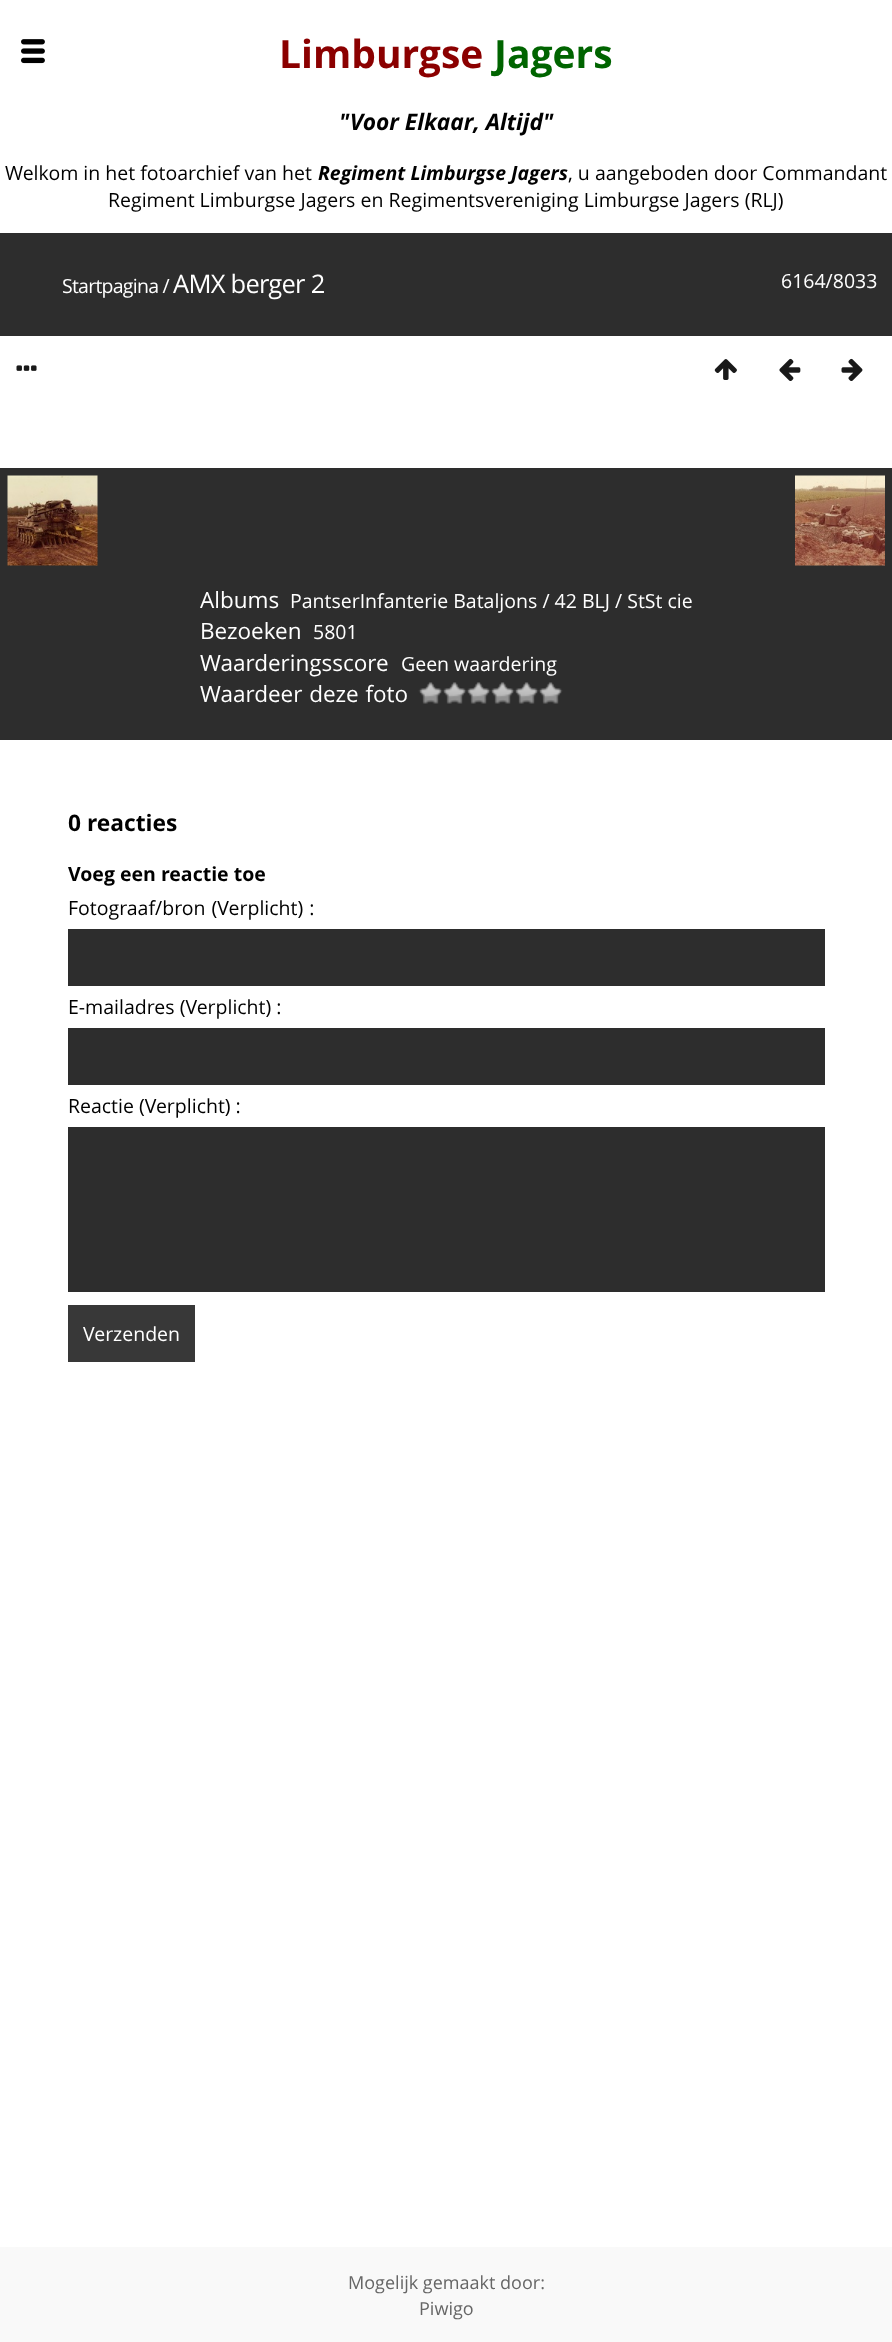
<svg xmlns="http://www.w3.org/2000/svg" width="892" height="2342">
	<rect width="100%" height="100%" fill="#FFFFFF" />
	<text x="279" y="68" font-family="Open Sans" font-size="39" font-weight="700" fill="#8B0000">Limburgse</text>
	<text x="494" y="68" font-family="Open Sans" font-size="39" font-weight="700" fill="#006400">Jagers</text>
	<text x="339" y="130" font-family="Open Sans" font-size="22.75" font-weight="700" font-style="italic" fill="#000000">"Voor Elkaar, Altijd"</text>
	<text x="5" y="180" font-family="Open Sans" font-size="19.5" fill="#000000">Welkom in het fotoarchief van het</text>
	<text x="318" y="180" font-family="Open Sans" font-size="19.5" font-weight="700" font-style="italic" fill="#000000">Regiment Limburgse Jagers</text>
	<g font-family="Open Sans" font-size="19.5" fill="#000000">
		<text x="568" y="180">, u aangeboden door Commandant</text>
		<text x="108" y="207">Regiment Limburgse Jagers en Regimentsvereniging Limburgse Jagers (RLJ)</text>
	</g>
	<image x="21" y="39" width="24" height="25" href="assets/img1.png" />
	<rect x="0" y="233" width="892" height="103" fill="#2D2D2D" />
	<text x="62" y="293" font-family="Open Sans" font-size="19.5" letter-spacing="-0.75" fill="#FFFFFF">Startpagina /</text>
	<text x="173" y="293" font-family="Open Sans" font-size="25.5" letter-spacing="-0.75" fill="#FFFFFF">AMX berger 2</text>
	<text x="781" y="288" font-family="Open Sans" font-size="19.5" fill="#FFFFFF">6164/8033</text>
	<image x="16" y="365" width="21" height="6" href="assets/img2.png" />
	<image x="714" y="359" width="23" height="21" href="assets/img3.png" />
	<image x="779" y="358" width="22" height="23" href="assets/img4.png" />
	<image x="841" y="358" width="22" height="23" href="assets/img5.png" />
	<rect x="0" y="468" width="892" height="272" fill="#2D2D2D" />
	<image x="7" y="475" width="91" height="91" href="assets/img6.png" />
	<image x="795" y="475" width="90" height="91" href="assets/img7.png" />
	<text x="200" y="608" font-family="Open Sans" font-size="22.5" fill="#FFFFFF">Albums</text>
	<text x="290" y="608" font-family="Open Sans" font-size="19.5" fill="#FFFFFF">PantserInfanterie Bataljons / 42 BLJ / StSt cie</text>
	<text x="200" y="639" font-family="Open Sans" font-size="22.5" fill="#FFFFFF">Bezoeken</text>
	<text x="313" y="639" font-family="Open Sans" font-size="19.5" fill="#FFFFFF">5801</text>
	<text x="200" y="671" font-family="Open Sans" font-size="22.5" fill="#FFFFFF">Waarderingsscore</text>
	<text x="401" y="671" font-family="Open Sans" font-size="19.5" fill="#FFFFFF">Geen waardering</text>
	<text x="200" y="702" word-spacing="1" font-family="Open Sans" font-size="22.5" fill="#FFFFFF">Waardeer deze foto</text>
	<image x="418" y="682" width="25" height="22" href="assets/img8.png" />
	<image x="442" y="682" width="25" height="22" href="assets/img9.png" />
	<image x="466" y="682" width="25" height="22" href="assets/img10.png" />
	<image x="490" y="682" width="25" height="22" href="assets/img10.png" />
	<image x="514" y="682" width="25" height="22" href="assets/img11.png" />
	<image x="538" y="682" width="25" height="22" href="assets/img9.png" />
	<text x="68" y="831" font-family="Open Sans" font-size="22.75" font-weight="700" fill="#000000">0 reacties</text>
	<text x="68" y="881" font-family="Open Sans" font-size="19.5" font-weight="700" fill="#000000">Voeg een reactie toe</text>
	<text x="68" y="915" word-spacing="1" font-family="Open Sans" font-size="19.5" fill="#000000">Fotograaf/bron (Verplicht) :</text>
	<rect x="68" y="929" width="757" height="57" fill="#2D2D2D" />
	<text x="68" y="1014" font-family="Open Sans" font-size="19.5" fill="#000000">E-mailadres (Verplicht) :</text>
	<rect x="68" y="1028" width="757" height="57" fill="#2D2D2D" />
	<text x="68" y="1113" font-family="Open Sans" font-size="19.5" fill="#000000">Reactie (Verplicht) :</text>
	<rect x="68" y="1127" width="757" height="165" fill="#2D2D2D" />
	<rect x="68" y="1305" width="127" height="57" fill="#383838" />
	<text x="83" y="1341" font-family="Open Sans" font-size="19.5" fill="#FFFFFF">Verzenden</text>
	<rect x="0" y="2247" width="892" height="95" fill="#F9F9F9" />
	<g font-family="Open Sans" font-size="18" fill="#666666">
		<text x="348" y="2289">Mogelijk gemaakt door:</text>
		<text x="419" y="2315">Piwigo</text>
	</g>
</svg>
